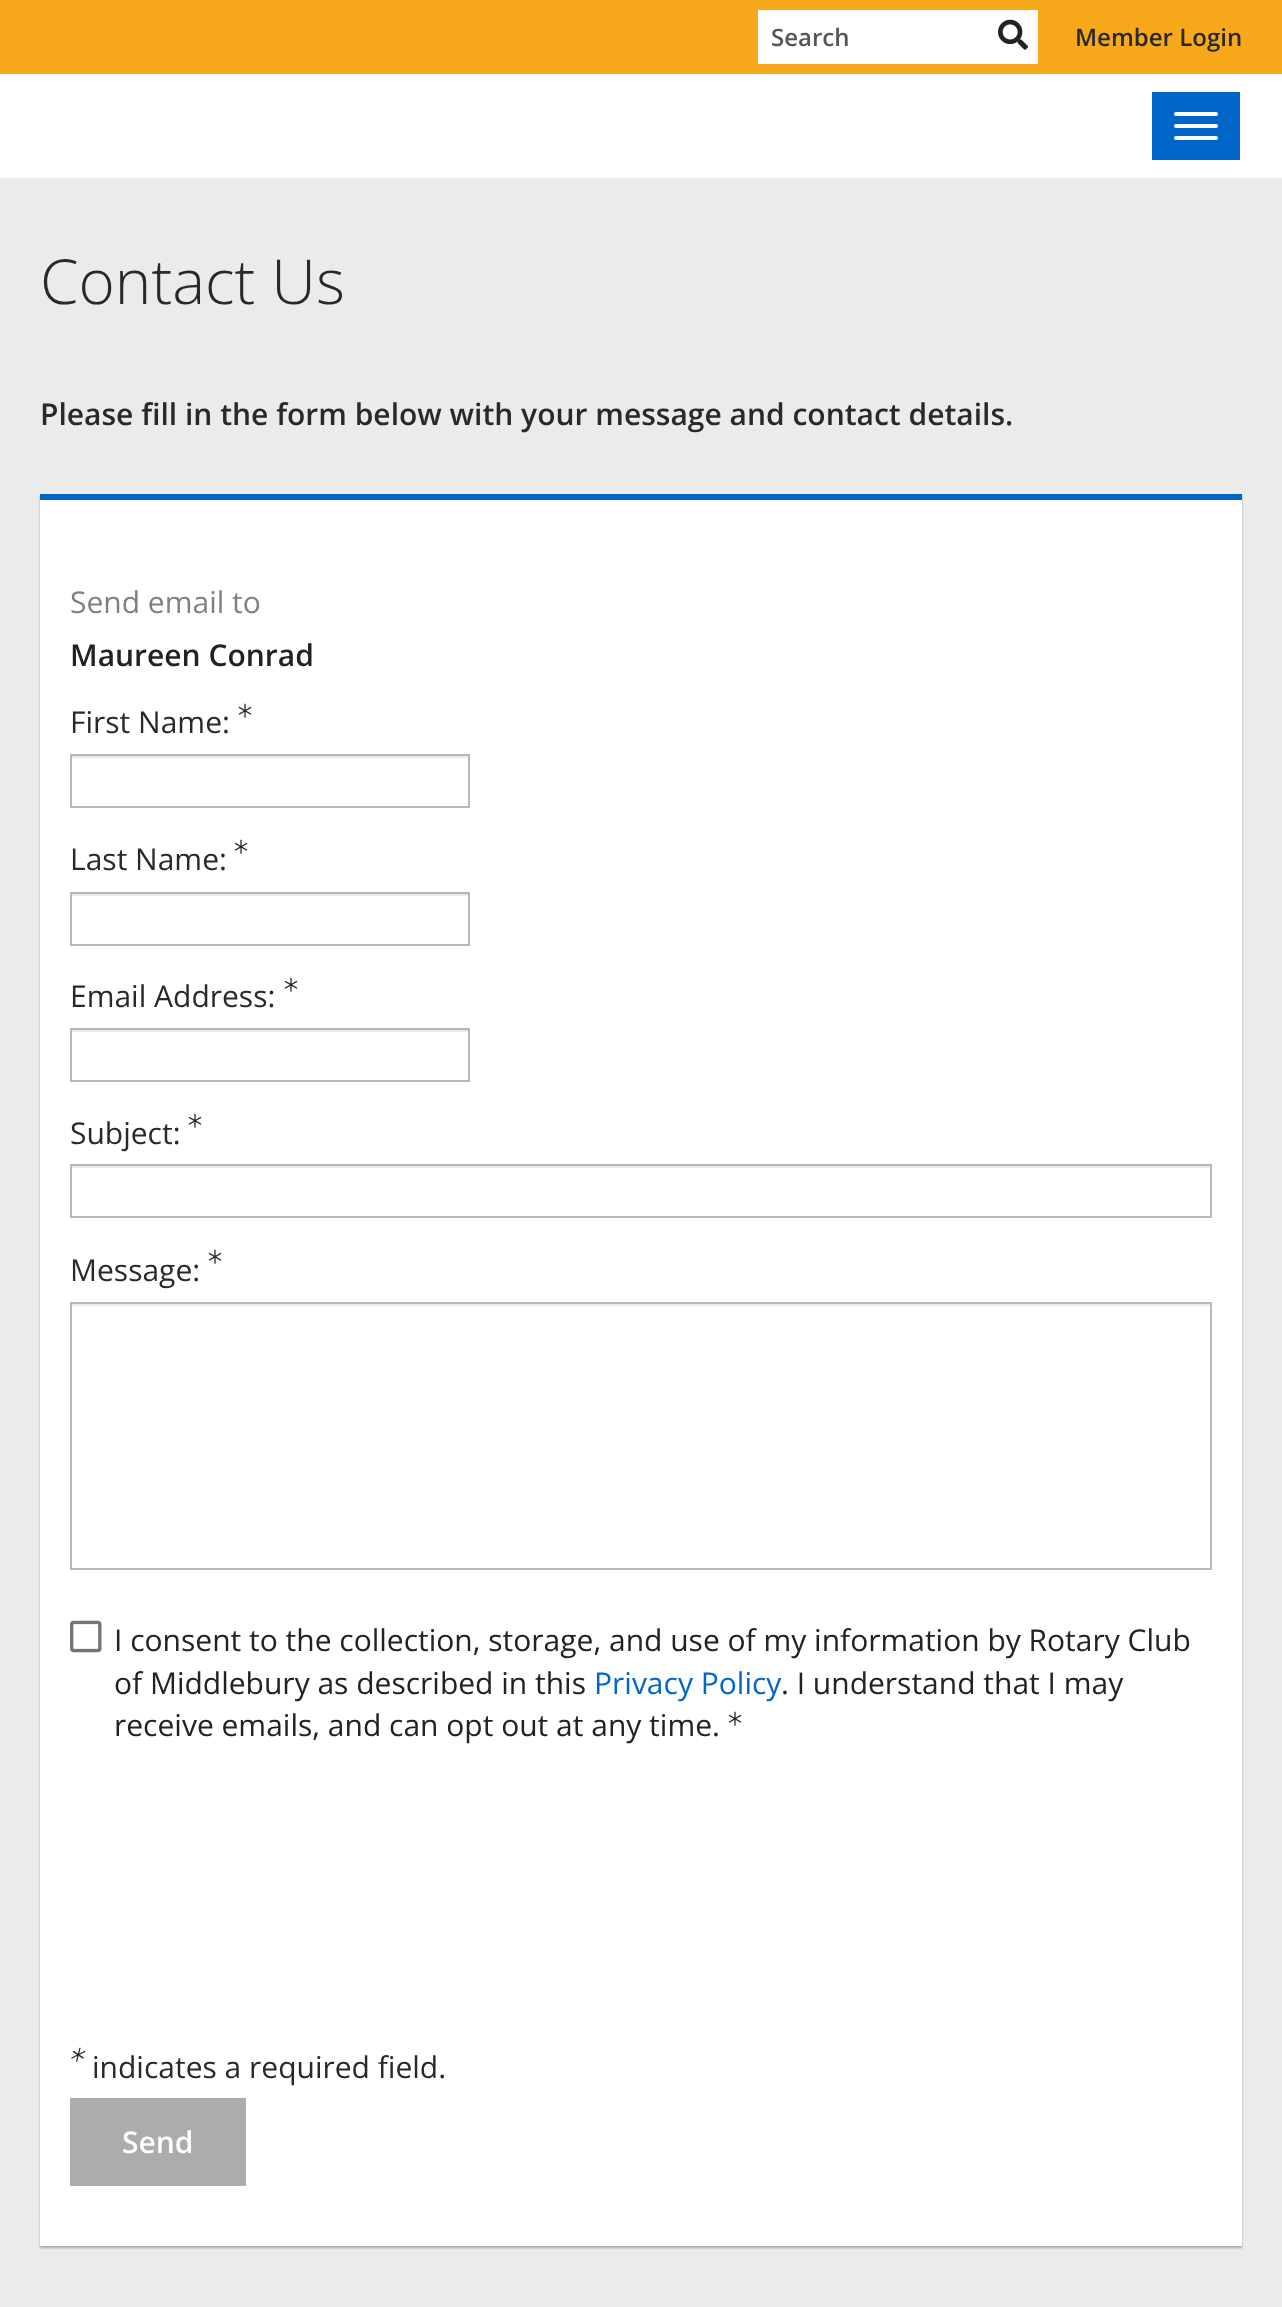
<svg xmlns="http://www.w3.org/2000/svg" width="1282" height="2307">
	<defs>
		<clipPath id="clip1"><path d="M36 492H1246V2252H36ZM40 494H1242V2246H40Z" clip-rule="evenodd" /></clipPath>
	</defs>
	<rect width="100%" height="100%" fill="#EBEBEB" />
	<rect x="0" y="0" width="1282" height="74" fill="#F7A81B" />
	<rect x="758" y="10" width="280" height="54" fill="#FFFFFF" />
	<text x="771" y="46" font-family="Open Sans" font-size="24" font-weight="600" fill="#555555">Search</text>
	<image x="998" y="19" width="30" height="31" href="assets/img1.png" />
	<text x="1075" y="46" font-family="Open Sans" font-size="24" font-weight="600" fill="#292929">Member Login</text>
	<rect x="0" y="74" width="1282" height="104" fill="#FFFFFF" />
	<rect x="1152" y="92" width="88" height="68" fill="#0067C8" />
	<rect x="1174" y="112" width="44" height="4" rx="2" fill="#FFFFFF" />
	<rect x="1174" y="124" width="44" height="4" rx="2" fill="#FFFFFF" />
	<rect x="1174" y="136" width="44" height="4" rx="2" fill="#FFFFFF" />
	<text x="40" y="304" font-family="Open Sans" font-size="62" font-weight="300" fill="#292929">Contact Us</text>
	<text x="40" y="425" font-family="Open Sans" font-size="30" font-weight="600" fill="#292929">Please fill in the form below with your message and contact details.</text>
	<rect x="40" y="496" width="1202" height="1752" fill="#000000" fill-opacity="0.15" filter="blur(1px)" />
	<rect x="40" y="500" width="1202" height="1746" fill="#FFFFFF" />
	<g clip-path="url(#clip1)">
		<rect x="40" y="496" width="1202" height="1752" fill="#000000" fill-opacity="0.15" filter="blur(1px)" />
	</g>
	<rect x="40" y="494" width="1202" height="6" fill="#0067C8" />
	<text x="70" y="613" font-family="Open Sans" font-size="30" fill="#808080">Send email to</text>
	<text x="70" y="666" font-family="Open Sans" font-size="30" font-weight="600" fill="#222222">Maureen Conrad</text>
	<text x="70" y="733" font-family="Open Sans" font-size="30" fill="#292929">First Name:</text>
	<image x="238" y="703" width="14" height="15" href="assets/img2.png" />
	<rect x="72" y="756" width="396" height="2" fill="#ECECEC" />
	<rect x="71" y="755" width="398" height="52" fill="none" stroke="#B7B7B7" stroke-width="2" />
	<image x="234" y="839" width="14" height="15" href="assets/img2.png" />
	<text x="70" y="870" font-family="Open Sans" font-size="30" fill="#292929">Last Name:</text>
	<rect x="72" y="894" width="396" height="2" fill="#ECECEC" />
	<rect x="71" y="893" width="398" height="52" fill="none" stroke="#B7B7B7" stroke-width="2" />
	<text x="70" y="1007" font-family="Open Sans" font-size="30" fill="#292929">Email Address:</text>
	<image x="284" y="977" width="14" height="15" href="assets/img2.png" />
	<rect x="72" y="1030" width="396" height="2" fill="#ECECEC" />
	<rect x="71" y="1029" width="398" height="52" fill="none" stroke="#B7B7B7" stroke-width="2" />
	<text x="70" y="1144" font-family="Open Sans" font-size="30" fill="#292929">Subject:</text>
	<image x="188" y="1113" width="14" height="15" href="assets/img2.png" />
	<rect x="72" y="1166" width="1138" height="2" fill="#ECECEC" />
	<rect x="71" y="1165" width="1140" height="52" fill="none" stroke="#B7B7B7" stroke-width="2" />
	<image x="208" y="1249" width="14" height="15" href="assets/img2.png" />
	<text x="70" y="1281" font-family="Open Sans" font-size="30" fill="#292929">Message:</text>
	<rect x="72" y="1304" width="1138" height="2" fill="#ECECEC" />
	<rect x="71" y="1303" width="1140" height="266" fill="none" stroke="#B7B7B7" stroke-width="2" />
	<image x="70" y="1620" width="32" height="33" href="assets/img3.png" />
	<g font-family="Open Sans" font-size="30" fill="#222222">
		<text x="114" y="1651">I consent to the collection, storage, and use of my information by Rotary Club</text>
		<text x="114" y="1694">of Middlebury as described in this</text>
	</g>
	<text x="594" y="1694" font-family="Open Sans" font-size="30" fill="#0067C8">Privacy Policy</text>
	<g font-family="Open Sans" font-size="30" fill="#222222">
		<text x="781" y="1694">. I understand that I may</text>
		<text x="114" y="1736">receive emails, and can opt out at any time.</text>
	</g>
	<image x="728" y="1711" width="14" height="15" href="assets/img2.png" />
	<image x="71" y="2047" width="15" height="15" href="assets/img4.png" />
	<text x="92" y="2078" font-family="Open Sans" font-size="30" fill="#292929">indicates a required field.</text>
	<rect x="70" y="2098" width="176" height="88" fill="#ACACAC" />
	<text x="122" y="2153" font-family="Open Sans" font-size="30" font-weight="600" fill="#FFFFFF">Send</text>
</svg>
